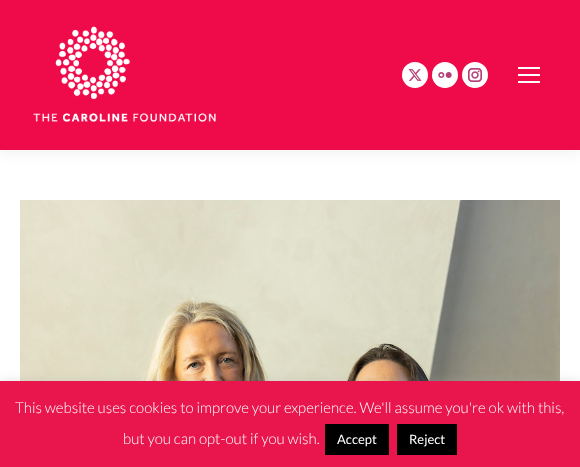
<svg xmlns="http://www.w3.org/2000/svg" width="580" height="467">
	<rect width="100%" height="100%" fill="#FFFFFF" />
	<rect x="-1" y="-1" width="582" height="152" fill="#000000" fill-opacity="0.07" filter="blur(7.5px)" />
	<rect x="0" y="0" width="580" height="150" fill="#EF0A4A" />
	<image x="33" y="26" width="183" height="96" href="assets/img1.png" />
	<circle cx="415" cy="75" r="13" fill="#FFFFFF" />
	<image x="408" y="69" width="14" height="12" href="assets/img2.png" />
	<circle cx="445" cy="75" r="13" fill="#FFFFFF" />
	<image x="438" y="72" width="14" height="6" href="assets/img3.png" />
	<circle cx="475" cy="75" r="13" fill="#FFFFFF" />
	<image x="468" y="68" width="14" height="14" href="assets/img4.png" />
	<rect x="518" y="67" width="22" height="2" fill="#FFFFFF" />
	<rect x="518" y="74" width="22" height="2" fill="#FFFFFF" />
	<rect x="518" y="81" width="22" height="2" fill="#FFFFFF" />
	<image x="20" y="200" width="540" height="181" href="assets/img5.png" />
	<rect x="0" y="380" width="580" height="86" fill="#ACABAB" fill-opacity="0.3" filter="blur(5px)" />
	<rect x="0" y="381" width="580" height="86" fill="#E9164D" />
	<g font-family="Lato" font-size="15" font-weight="300" fill="#FFFFFF">
		<text x="15" y="413">This website uses cookies to improve your experience. We'll assume you're ok with this,</text>
		<text x="123" y="444">but you can opt-out if you wish.</text>
	</g>
	<rect x="325" y="424" width="64" height="31" fill="#000000" />
	<text x="337" y="444" font-family="Lato" font-size="13" fill="#FFFFFF">Accept</text>
	<rect x="397" y="424" width="60" height="31" fill="#000000" />
	<text x="409" y="444" font-family="Lato" font-size="13" fill="#FFFFFF">Reject</text>
</svg>
